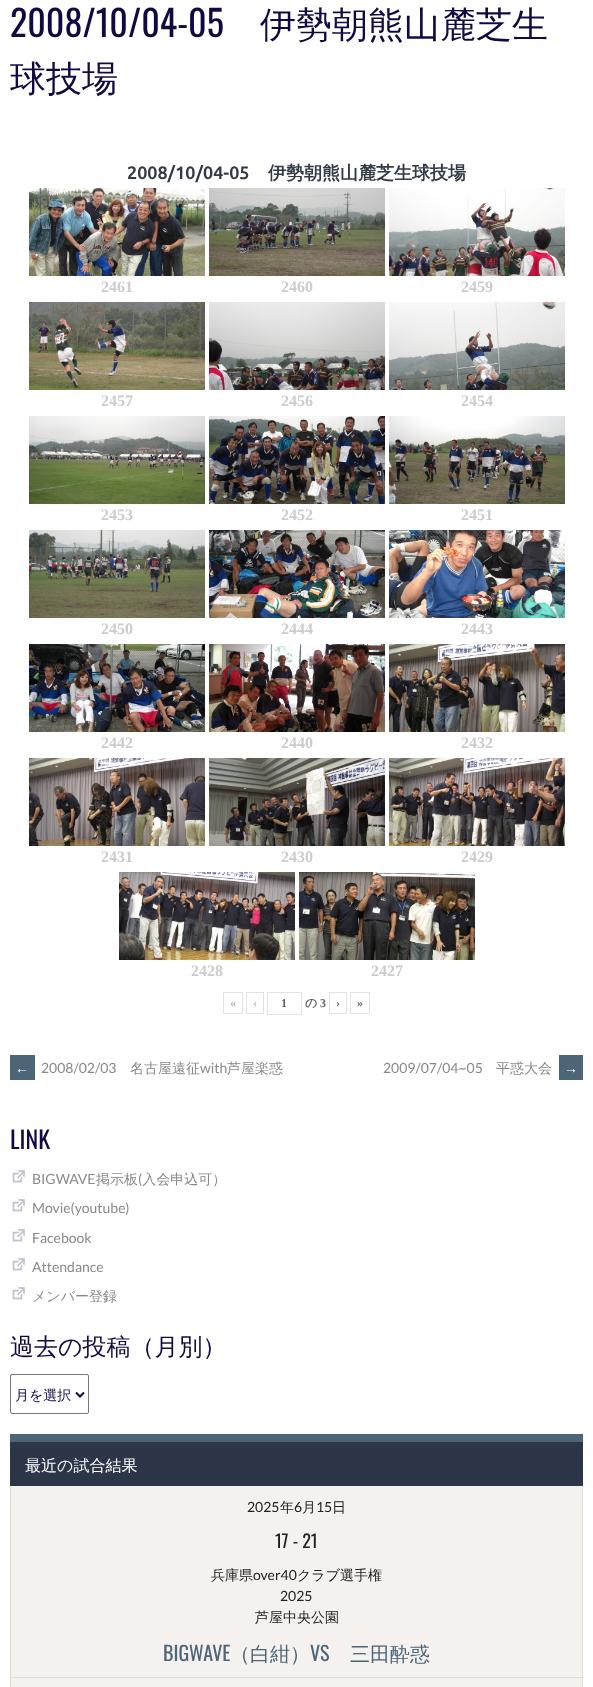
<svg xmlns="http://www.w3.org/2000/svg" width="593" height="1687">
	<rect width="100%" height="100%" fill="#FFFFFF" />
	<text x="10" y="37" font-family="Oswald" font-size="36" fill="#130942">2008/10/04-05</text>
	<g font-family="WenQuanYi Zen Hei" font-size="36" font-weight="500" fill="#130942">
		<text x="260" y="37">伊勢朝熊山麓芝生</text>
		<text x="10" y="91">球技場</text>
	</g>
	<text x="127" y="179" font-family="Ubuntu" font-size="18" font-weight="700" fill="#323A45">2008/10/04-05</text>
	<text x="268" y="179" font-family="WenQuanYi Zen Hei" font-size="18" font-weight="700" fill="#323A45">伊勢朝熊山麓芝生球技場</text>
	<image x="29" y="188" width="176" height="88" href="assets/img1.png" />
	<text x="101" y="292" font-family="Liberation Serif" font-size="16" font-weight="700" fill="#CCCCCC">2461</text>
	<image x="209" y="188" width="176" height="88" href="assets/img2.png" />
	<text x="281" y="292" font-family="Liberation Serif" font-size="16" font-weight="700" fill="#CCCCCC">2460</text>
	<image x="389" y="188" width="176" height="88" href="assets/img3.png" />
	<text x="461" y="292" font-family="Liberation Serif" font-size="16" font-weight="700" fill="#CCCCCC">2459</text>
	<image x="29" y="302" width="176" height="88" href="assets/img4.png" />
	<text x="101" y="406" font-family="Liberation Serif" font-size="16" font-weight="700" fill="#CCCCCC">2457</text>
	<image x="209" y="302" width="176" height="88" href="assets/img5.png" />
	<text x="281" y="406" font-family="Liberation Serif" font-size="16" font-weight="700" fill="#CCCCCC">2456</text>
	<image x="389" y="302" width="176" height="88" href="assets/img6.png" />
	<text x="461" y="406" font-family="Liberation Serif" font-size="16" font-weight="700" fill="#CCCCCC">2454</text>
	<image x="29" y="416" width="176" height="88" href="assets/img7.png" />
	<text x="101" y="520" font-family="Liberation Serif" font-size="16" font-weight="700" fill="#CCCCCC">2453</text>
	<image x="209" y="416" width="176" height="88" href="assets/img8.png" />
	<text x="281" y="520" font-family="Liberation Serif" font-size="16" font-weight="700" fill="#CCCCCC">2452</text>
	<image x="389" y="416" width="176" height="88" href="assets/img9.png" />
	<text x="461" y="520" font-family="Liberation Serif" font-size="16" font-weight="700" fill="#CCCCCC">2451</text>
	<image x="29" y="530" width="176" height="88" href="assets/img10.png" />
	<text x="101" y="634" font-family="Liberation Serif" font-size="16" font-weight="700" fill="#CCCCCC">2450</text>
	<image x="209" y="530" width="176" height="88" href="assets/img11.png" />
	<text x="281" y="634" font-family="Liberation Serif" font-size="16" font-weight="700" fill="#CCCCCC">2444</text>
	<image x="389" y="530" width="176" height="88" href="assets/img12.png" />
	<text x="461" y="634" font-family="Liberation Serif" font-size="16" font-weight="700" fill="#CCCCCC">2443</text>
	<image x="29" y="644" width="176" height="88" href="assets/img13.png" />
	<text x="101" y="748" font-family="Liberation Serif" font-size="16" font-weight="700" fill="#CCCCCC">2442</text>
	<image x="209" y="644" width="176" height="88" href="assets/img14.png" />
	<text x="281" y="748" font-family="Liberation Serif" font-size="16" font-weight="700" fill="#CCCCCC">2440</text>
	<image x="389" y="644" width="176" height="88" href="assets/img15.png" />
	<text x="461" y="748" font-family="Liberation Serif" font-size="16" font-weight="700" fill="#CCCCCC">2432</text>
	<image x="29" y="758" width="176" height="88" href="assets/img16.png" />
	<text x="101" y="862" font-family="Liberation Serif" font-size="16" font-weight="700" fill="#CCCCCC">2431</text>
	<image x="209" y="758" width="176" height="88" href="assets/img17.png" />
	<text x="281" y="862" font-family="Liberation Serif" font-size="16" font-weight="700" fill="#CCCCCC">2430</text>
	<image x="389" y="758" width="176" height="88" href="assets/img18.png" />
	<text x="461" y="862" font-family="Liberation Serif" font-size="16" font-weight="700" fill="#CCCCCC">2429</text>
	<image x="119" y="872" width="176" height="88" href="assets/img19.png" />
	<text x="191" y="976" font-family="Liberation Serif" font-size="16" font-weight="700" fill="#CCCCCC">2428</text>
	<image x="299" y="872" width="176" height="88" href="assets/img20.png" />
	<text x="371" y="976" font-family="Liberation Serif" font-size="16" font-weight="700" fill="#CCCCCC">2427</text>
	<rect x="223.5" y="992.5" width="19" height="21" fill="none" stroke="#E3E3E3" />
	<text x="230" y="1007" font-family="Liberation Serif" font-size="12" font-weight="700" fill="#B3B3B3">«</text>
	<rect x="246.5" y="992.5" width="17" height="21" fill="none" stroke="#E3E3E3" />
	<text x="253" y="1007" font-family="Liberation Serif" font-size="12" font-weight="700" fill="#B3B3B3">‹</text>
	<rect x="267.5" y="992.5" width="34" height="22" fill="none" stroke="#E3E3E3" />
	<text x="281" y="1007" font-family="Liberation Serif" font-size="12" font-weight="700" fill="#666666">1</text>
	<text x="305" y="1007" font-family="WenQuanYi Zen Hei" font-size="12" font-weight="700" fill="#666666">の</text>
	<text x="320" y="1007" font-family="Liberation Serif" font-size="12" font-weight="700" fill="#666666">3</text>
	<rect x="329.5" y="992.5" width="17" height="21" fill="none" stroke="#E3E3E3" />
	<text x="336" y="1007" font-family="Liberation Serif" font-size="12" font-weight="700" fill="#666666">›</text>
	<rect x="350.5" y="992.5" width="19" height="21" fill="none" stroke="#E3E3E3" />
	<text x="357" y="1007" font-family="Liberation Serif" font-size="12" font-weight="700" fill="#666666">»</text>
	<rect x="10" y="1055" width="25" height="25" fill="#4C6577" />
	<text x="15" y="1073" font-family="Liberation Sans" font-size="14" fill="#FFFFFF">←</text>
	<text x="41" y="1073" font-family="Lato" font-size="14" fill="#8B8988">2008/02/03</text>
	<text x="130" y="1073" font-family="WenQuanYi Zen Hei" font-size="14" font-weight="500" fill="#8B8988">名古屋遠征</text>
	<text x="200" y="1073" font-family="Lato" font-size="14" fill="#8B8988">with</text>
	<text x="227" y="1073" font-family="WenQuanYi Zen Hei" font-size="14" font-weight="500" fill="#8B8988">芦屋楽惑</text>
	<text x="383" y="1073" font-family="Lato" font-size="14" fill="#8B8988">2009/07/04~05</text>
	<text x="496" y="1073" font-family="WenQuanYi Zen Hei" font-size="14" font-weight="500" fill="#8B8988">平惑大会</text>
	<rect x="559" y="1055" width="24" height="25" fill="#4C6577" />
	<text x="564" y="1073" font-family="Liberation Sans" font-size="14" fill="#FFFFFF">→</text>
	<text x="10" y="1149" font-family="Oswald" font-size="24" fill="#130942">LINK</text>
	<image x="12" y="1170" width="13" height="13" href="assets/img21.png" />
	<text x="32" y="1184" font-family="Lato" font-size="14" fill="#8B8988">BIGWAVE</text>
	<text x="96" y="1184" font-family="WenQuanYi Zen Hei" font-size="14" font-weight="500" fill="#8B8988">掲示板 入会申込可）</text>
	<text x="138" y="1184" font-family="Lato" font-size="14" fill="#8B8988">(</text>
	<image x="12" y="1199" width="13" height="13" href="assets/img21.png" />
	<text x="32" y="1213" font-family="Lato" font-size="14" fill="#8B8988">Movie(youtube)</text>
	<image x="12" y="1229" width="13" height="13" href="assets/img21.png" />
	<text x="32" y="1243" font-family="Lato" font-size="14" fill="#8B8988">Facebook</text>
	<image x="12" y="1258" width="13" height="13" href="assets/img21.png" />
	<text x="32" y="1272" font-family="Lato" font-size="14" fill="#8B8988">Attendance</text>
	<image x="12" y="1287" width="13" height="13" href="assets/img21.png" />
	<text x="32" y="1301" font-family="WenQuanYi Zen Hei" font-size="14" font-weight="500" fill="#8B8988">メンバー登録</text>
	<text x="10" y="1355" font-family="WenQuanYi Zen Hei" font-size="24" font-weight="500" fill="#130942">過去の投稿（月別）</text>
	<rect x="10.5" y="1374.5" width="78" height="39" rx="1.5" fill="none" stroke="#767676" />
	<path d="M76 1392.5L80 1396.5L84 1392.5" fill="none" stroke="#130942" stroke-width="2" />
	<text x="15" y="1400" font-family="WenQuanYi Zen Hei" font-size="14" font-weight="500" fill="#130942">月を選択</text>
	<rect x="582" y="1485" width="1" height="202" fill="#E0DDDB" />
	<rect x="10" y="1485" width="1" height="202" fill="#E0DDDB" />
	<rect x="10" y="1442" width="573" height="44" fill="#2D3549" />
	<rect x="10" y="1434" width="573" height="8" fill="#4C6577" />
	<text x="25" y="1471" font-family="WenQuanYi Zen Hei" font-size="16" font-weight="500" fill="#FFFFFF">最近の試合結果</text>
	<rect x="11" y="1486" width="571" height="201" fill="#F4F1EF" />
	<text x="247" y="1512" font-family="Lato" font-size="14" fill="#222222">2025</text>
	<text x="280" y="1512" font-family="WenQuanYi Zen Hei" font-size="14" font-weight="500" fill="#222222">年</text>
	<text x="294" y="1512" font-family="Lato" font-size="14" fill="#222222">6</text>
	<text x="302" y="1512" font-family="WenQuanYi Zen Hei" font-size="14" font-weight="500" fill="#222222">月</text>
	<text x="316" y="1512" font-family="Lato" font-size="14" fill="#222222">15</text>
	<text x="332" y="1512" font-family="WenQuanYi Zen Hei" font-size="14" font-weight="500" fill="#222222">日</text>
	<text x="275" y="1548" font-family="Oswald" font-size="18" fill="#222222">17 - 21</text>
	<text x="211" y="1580" font-family="WenQuanYi Zen Hei" font-size="14" font-weight="500" fill="#222222">兵庫県</text>
	<text x="253" y="1580" font-family="Lato" font-size="14" fill="#222222">over40</text>
	<text x="297" y="1580" font-family="WenQuanYi Zen Hei" font-size="14" font-weight="500" fill="#222222">クラブ選手権</text>
	<text x="280" y="1601" font-family="Lato" font-size="14" fill="#222222">2025</text>
	<text x="255" y="1622" font-family="WenQuanYi Zen Hei" font-size="14" font-weight="500" fill="#222222">芦屋中央公園</text>
	<text x="163" y="1661" font-family="Oswald" font-size="20" fill="#4C6577">BIGWAVE</text>
	<text x="230" y="1661" font-family="WenQuanYi Zen Hei" font-size="20" font-weight="500" fill="#4C6577">（白紺）</text>
	<text x="310" y="1661" font-family="Oswald" font-size="20" fill="#4C6577">VS</text>
	<text x="350" y="1661" font-family="WenQuanYi Zen Hei" font-size="20" font-weight="500" fill="#4C6577">三田酔惑</text>
	<rect x="10" y="1677" width="573" height="1" fill="#E0DDDB" />
</svg>
